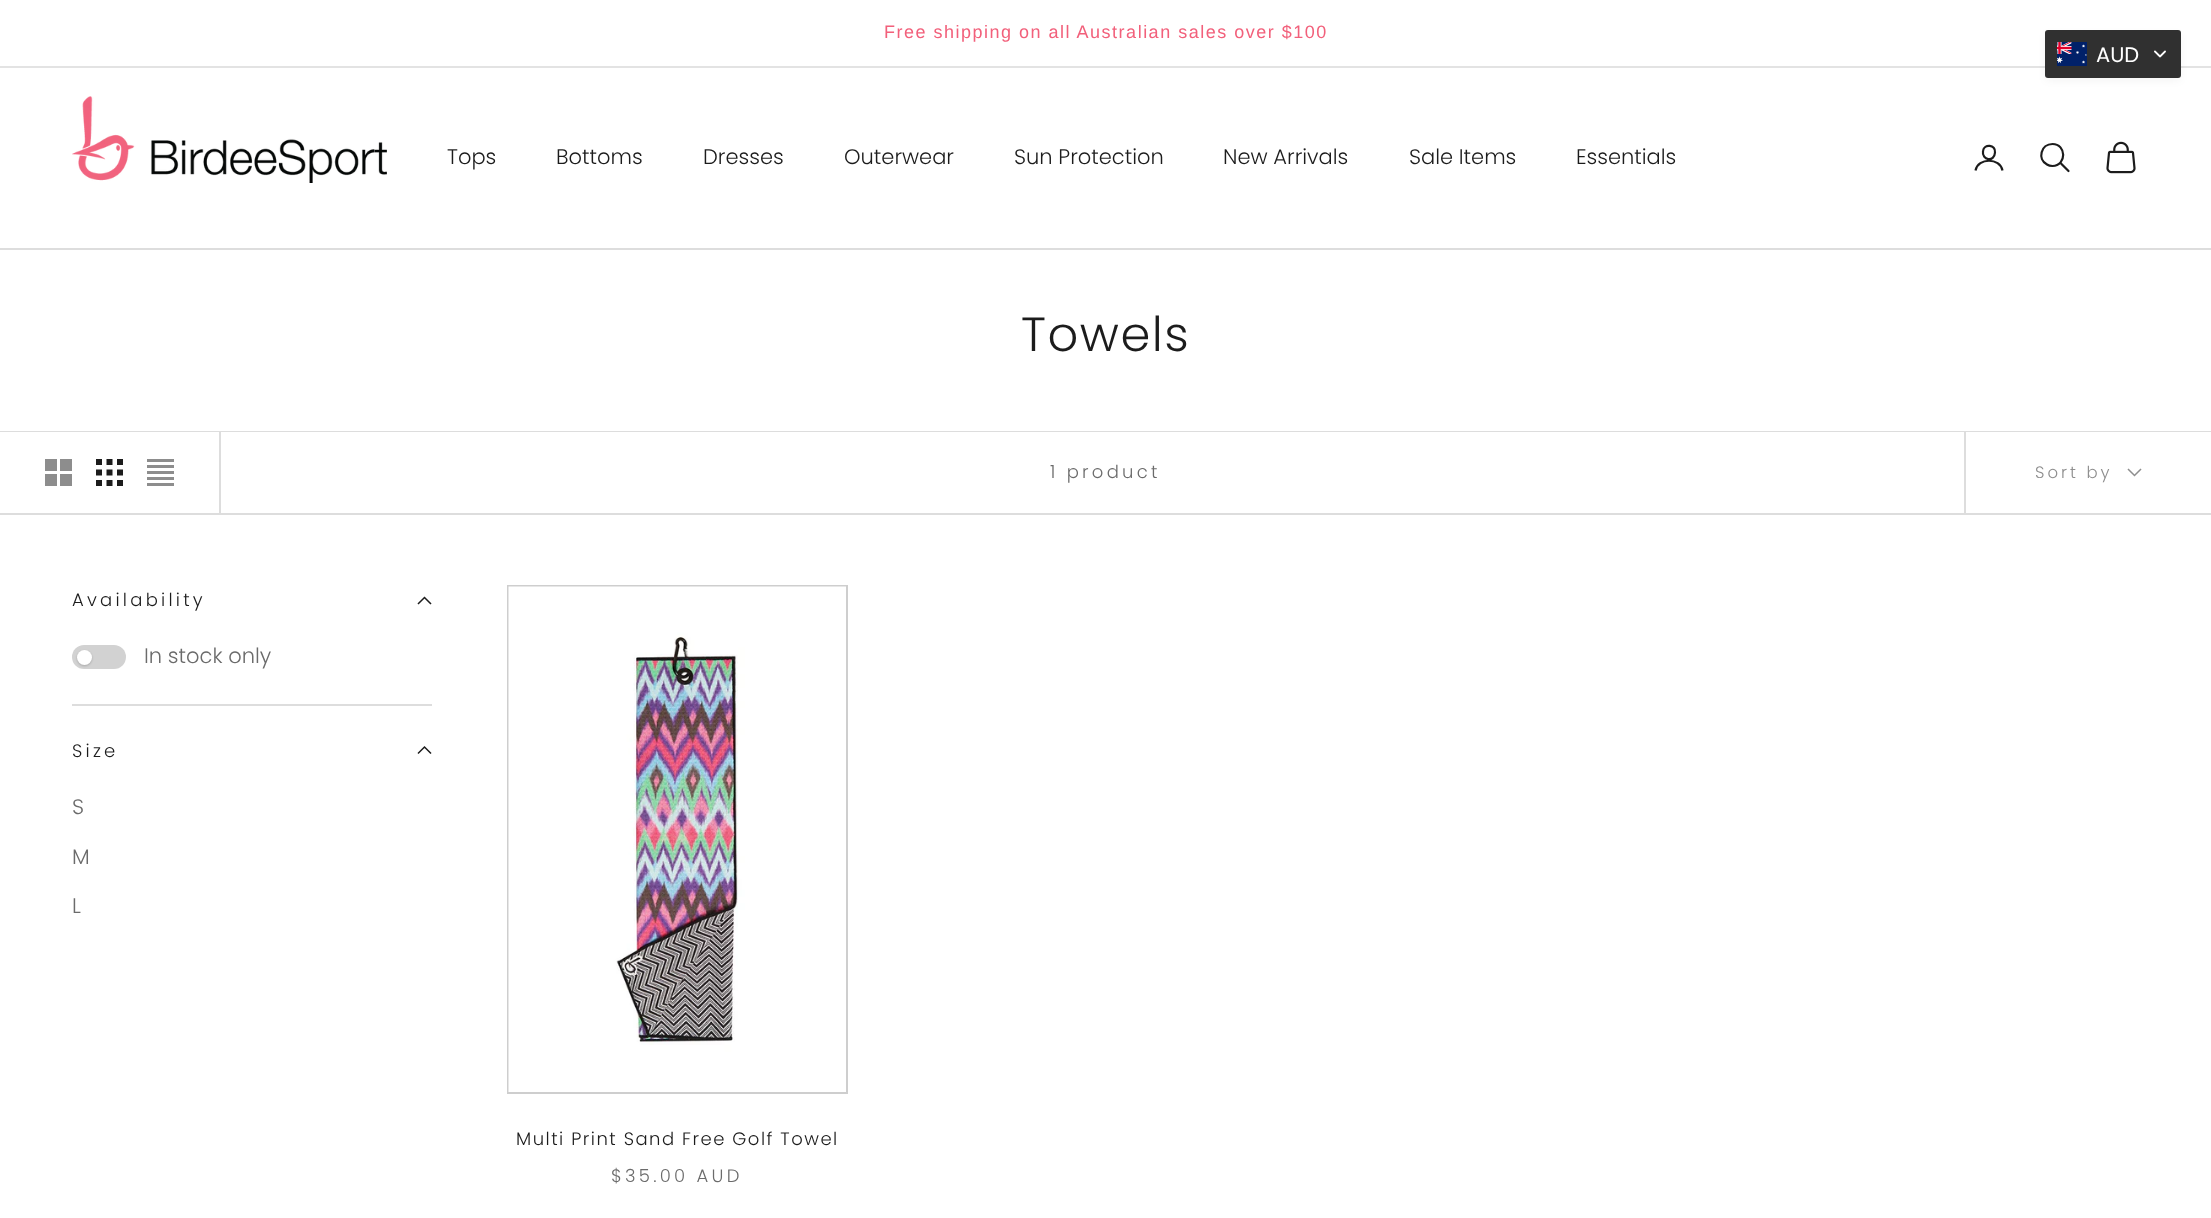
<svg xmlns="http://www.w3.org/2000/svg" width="2211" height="1218">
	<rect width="100%" height="100%" fill="#FFFFFF" />
	<rect x="0" y="66" width="2211" height="2" fill="#E3E3E3" />
	<text x="884" y="38" font-family="Liberation Sans" font-size="18" letter-spacing="1.5" fill="#F2607B">Free shipping on all Australian sales over $100</text>
	<rect x="2046" y="35" width="134" height="45" rx="1.5" fill="#0D0D0D" fill-opacity="0.05" filter="blur(4.5px)" />
	<rect x="2045" y="30" width="136" height="48" rx="3" fill="#303030" />
	<image x="2057" y="42" width="30" height="24" href="assets/img1.png" />
	<text x="2096" y="62" font-family="Poppins" font-size="21" fill="#FFFFFF">AUD</text>
	<image x="2154" y="50" width="12" height="8" href="assets/img2.png" />
	<rect x="0" y="248" width="2211" height="2" fill="#DDDDDD" />
	<image x="72" y="96" width="315" height="87" href="assets/img3.png" />
	<g font-family="Poppins" font-size="21" font-weight="300" fill="#1C1C1C">
		<text x="447" y="164">Tops</text>
		<text x="556" y="164">Bottoms</text>
		<text x="703" y="164">Dresses</text>
		<text x="844" y="164">Outerwear</text>
		<text x="1014" y="164">Sun Protection</text>
		<text x="1223" y="164">New Arrivals</text>
		<text x="1409" y="164">Sale Items</text>
		<text x="1576" y="164">Essentials</text>
	</g>
	<path d="M1995 152.5C1994.5 162.5 1981.5 160.5 1983 151C1984 143.5 1996 144.5 1995 152.5Z" fill="none" stroke="#1C1C1C" stroke-width="2.2" stroke-linecap="round" stroke-linejoin="round" />
	<path d="M1975.5 170.5C1978 157.5 2000 157.5 2002.5 170.5" fill="none" stroke="#1C1C1C" stroke-width="2.2" />
	<path d="M2052.5 144C2041 144 2037 159 2047 164.5C2048.5 165.5 2050.5 166 2052.5 166C2067 165.5 2066.5 144 2052.5 144Z" fill="none" stroke="#1C1C1C" stroke-width="2.2" />
	<path d="M2061 163.5L2068.5 171" fill="none" stroke="#1C1C1C" stroke-width="2.2" stroke-linecap="round" />
	<image x="2106" y="141" width="30" height="33" href="assets/img4.png" />
	<text x="1021" y="351" font-family="Poppins" font-size="48" font-weight="300" letter-spacing="1.5" fill="#1C1C1C">Towels</text>
	<rect x="0" y="431" width="2211" height="1" fill="#DDDDDD" />
	<rect x="0" y="513" width="2211" height="2" fill="#DDDDDD" />
	<rect x="219" y="432" width="2" height="81" fill="#DDDDDD" />
	<image x="45" y="459" width="27" height="27" href="assets/img5.png" />
	<image x="96" y="459" width="27" height="27" href="assets/img6.png" />
	<image x="147" y="459" width="27" height="27" href="assets/img7.png" />
	<text x="1050" y="478" font-family="Poppins" font-size="18" font-weight="300" letter-spacing="3.25" fill="#6B6B6B">1 product</text>
	<rect x="1964" y="432" width="2" height="81" fill="#DDDDDD" />
	<text x="2035" y="478" font-family="Poppins" font-size="16.5" font-weight="300" letter-spacing="3" fill="#8E8E8E">Sort by</text>
	<path d="M2128.5 469.5L2134.5 475.5L2140.5 469.5" fill="none" stroke="#8E8E8E" stroke-width="1.5" stroke-linecap="square" />
	<rect x="72" y="704" width="360" height="2" fill="#DDDDDD" />
	<text x="72" y="606" font-family="Poppins" font-size="18" font-weight="300" letter-spacing="3.25" fill="#1C1C1C">Availability</text>
	<path d="M430.5 603.5L424.5 597.5L418.5 603.5" fill="none" stroke="#1C1C1C" stroke-width="1.5" stroke-linecap="square" />
	<rect x="72" y="645" width="54" height="24" rx="12" fill="#D2D2D2" />
	<rect x="77" y="651" width="15" height="15" rx="7.5" fill="#000000" fill-opacity="0.2" filter="blur(1px)" />
	<circle cx="84.5" cy="657.5" r="7.5" fill="#FFFFFF" />
	<text x="144" y="663" font-family="Poppins" font-size="21" font-weight="300" fill="#6B6B6B">In stock only</text>
	<text x="72" y="757" font-family="Poppins" font-size="18" font-weight="300" letter-spacing="3.25" fill="#1C1C1C">Size</text>
	<path d="M430.5 753L424.5 747L418.5 753" fill="none" stroke="#1C1C1C" stroke-width="1.5" stroke-linecap="square" />
	<g font-family="Poppins" font-size="21" font-weight="300" fill="#6B6B6B">
		<text x="72" y="814">S</text>
		<text x="72" y="864">M</text>
		<text x="72" y="913">L</text>
	</g>
	<rect x="508" y="586" width="339" height="507" fill="none" stroke="#CECECE" stroke-width="2" />
	<image x="508" y="586" width="338" height="506" href="assets/img8.png" />
	<text x="516" y="1145" font-family="Poppins" font-size="18" font-weight="300" letter-spacing="1.5" fill="#1C1C1C">Multi Print Sand Free Golf Towel</text>
	<text x="611" y="1182" font-family="Poppins" font-size="18" font-weight="300" letter-spacing="3.25" fill="#6B6B6B">$35.00 AUD</text>
</svg>
